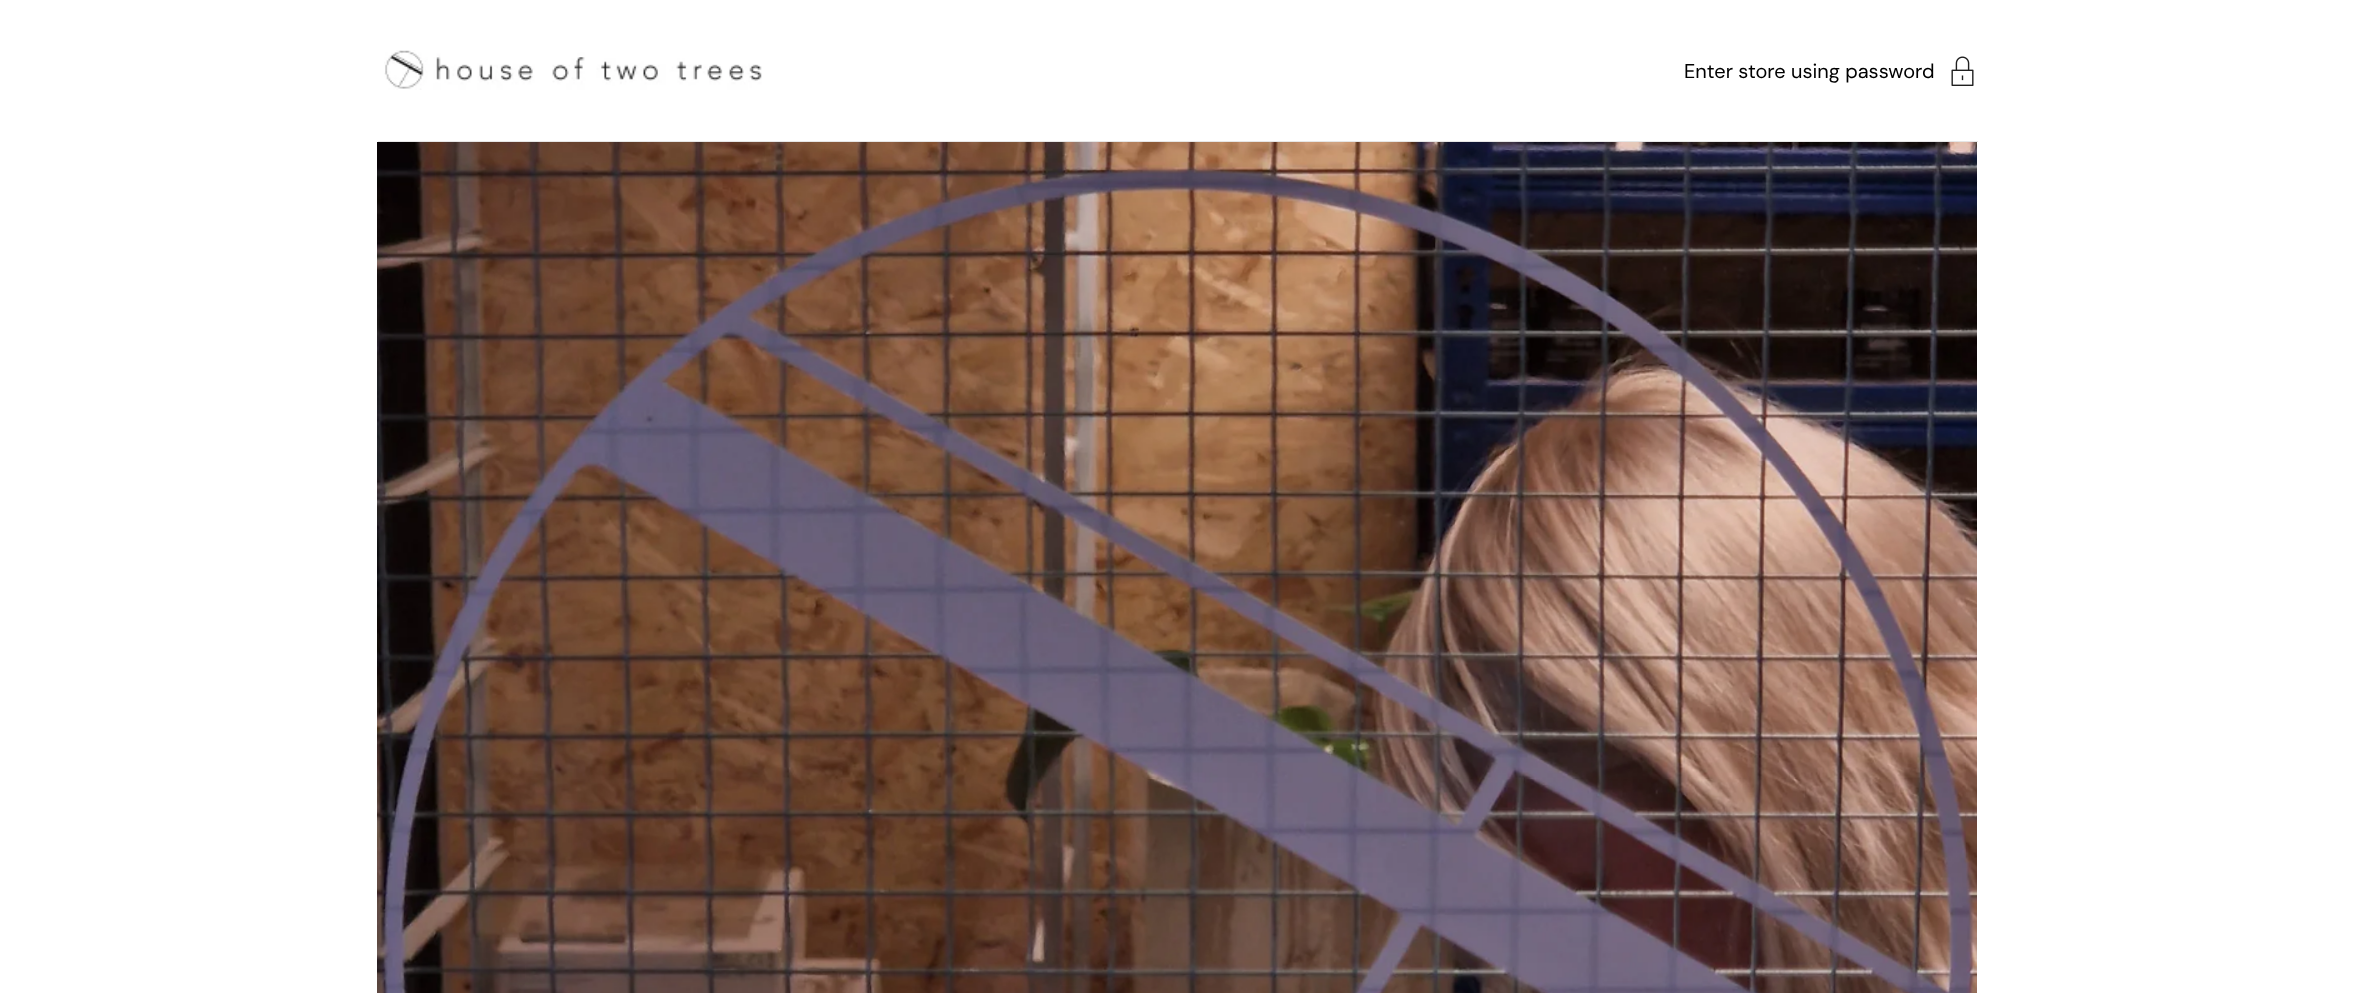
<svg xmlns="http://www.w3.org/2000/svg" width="2355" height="993">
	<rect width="100%" height="100%" fill="#FFFFFF" />
	<image x="384" y="50" width="378" height="40" href="assets/img1.png" />
	<text x="1684" y="78" font-family="DM Sans" font-size="20" fill="#000000">Enter store using password</text>
	<image x="1951" y="56" width="23" height="30" href="assets/img2.png" />
	<rect x="378" y="141" width="1600" height="1" fill="#E6E6E6" />
	<image x="377" y="142" width="1600" height="851" href="assets/img3.png" />
</svg>
